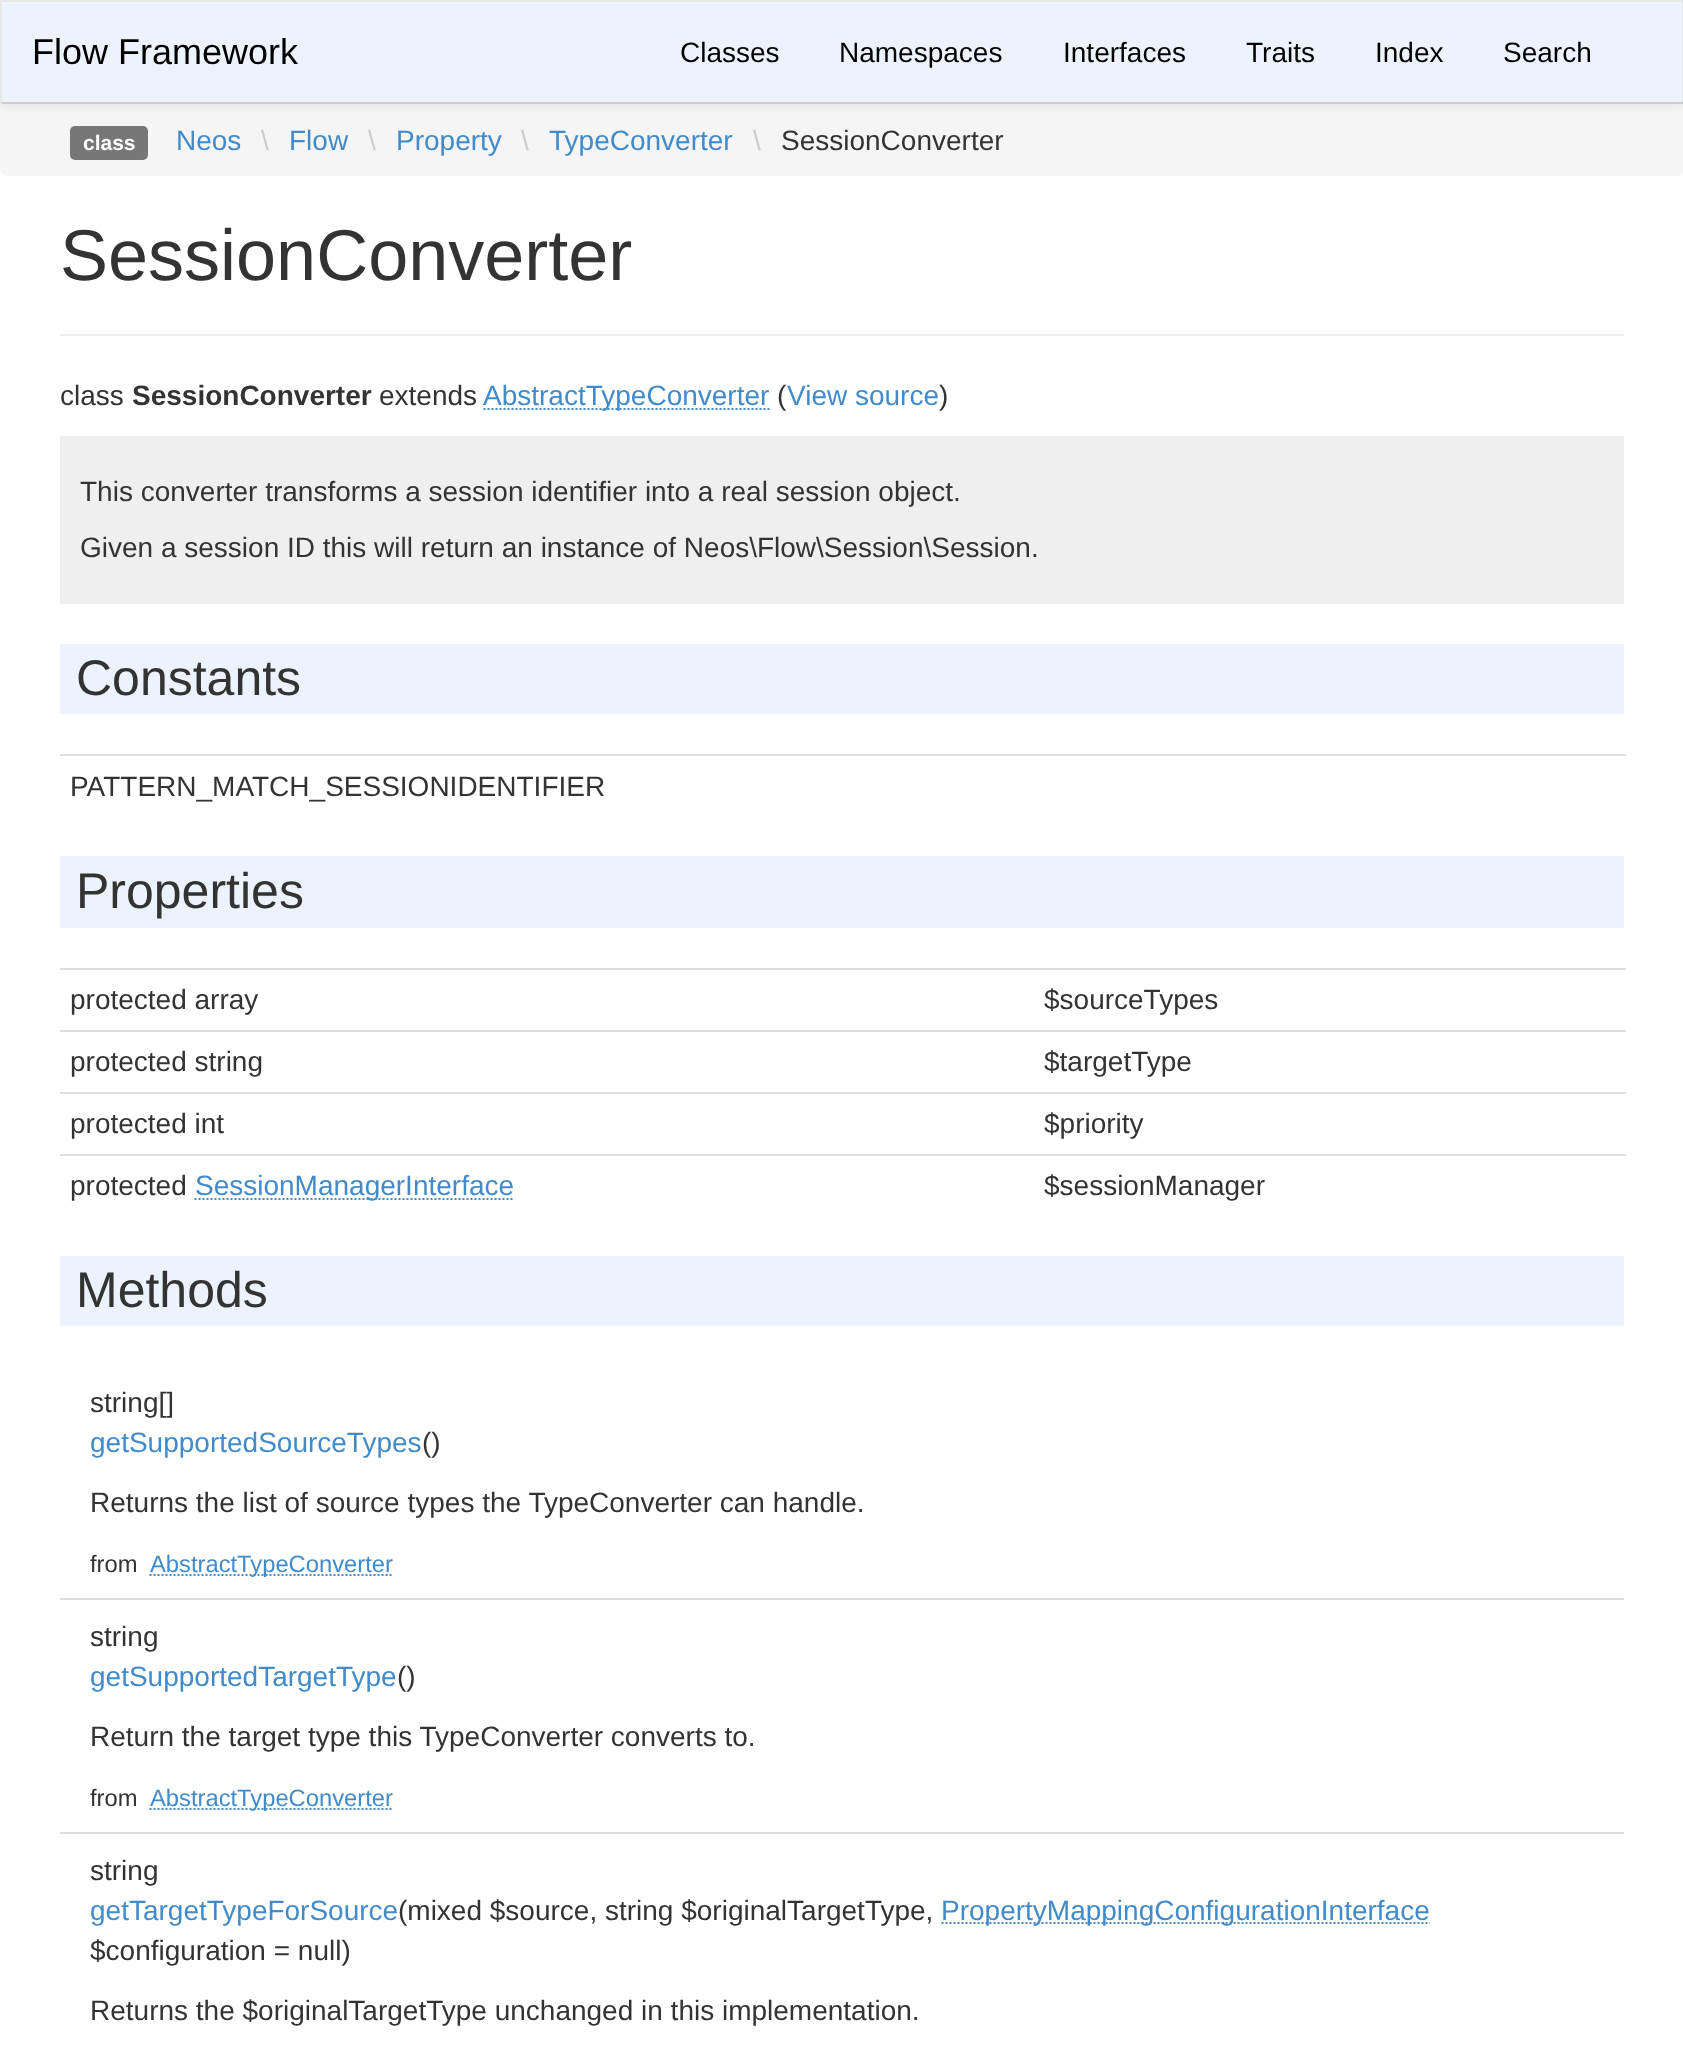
<svg xmlns="http://www.w3.org/2000/svg" width="1683" height="2048">
	<rect width="100%" height="100%" fill="#FFFFFF" />
	<path d="M0 104H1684V168C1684 172.5 1680.5 176 1676 176H8C3.5 176 0 172.5 0 168Z" fill="#F5F5F5" />
	<rect x="0" y="2" width="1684" height="104" fill="#000000" fill-opacity="0.07" filter="blur(5px)" />
	<rect x="2" y="4" width="1680" height="98" fill="#EDF3FE" />
	<rect x="2" y="2" width="1680" height="2" fill="#F0F5FE" />
	<rect x="0" y="0" width="1683" height="2" fill="#E7E7E7" />
	<rect x="1682" y="0" width="1" height="104" fill="#E7E7E7" />
	<rect x="0" y="102" width="1683" height="2" fill="#CCCCCC" />
	<rect x="0" y="0" width="2" height="104" fill="#E7E7E7" />
	<text x="32" y="64" font-family="Liberation Sans" font-size="36" fill="#000000">Flow Framework</text>
	<g font-family="Liberation Sans" font-size="28" fill="#000000">
		<text x="680" y="62">Classes</text>
		<text x="839" y="62">Namespaces</text>
		<text x="1063" y="62">Interfaces</text>
		<text x="1246" y="62">Traits</text>
		<text x="1375" y="62">Index</text>
		<text x="1503" y="62">Search</text>
	</g>
	<rect x="70" y="126" width="78" height="34" rx="5" fill="#777777" />
	<text x="83" y="150" font-family="Liberation Sans" font-size="21" font-weight="700" fill="#FFFFFF">class</text>
	<text x="176" y="150" font-family="Liberation Sans" font-size="28" fill="#428BCA">Neos</text>
	<text x="261" y="150" font-family="Liberation Sans" font-size="28" fill="#CCCCCC">\</text>
	<text x="289" y="150" font-family="Liberation Sans" font-size="28" fill="#428BCA">Flow</text>
	<text x="368" y="150" font-family="Liberation Sans" font-size="28" fill="#CCCCCC">\</text>
	<text x="396" y="150" font-family="Liberation Sans" font-size="28" fill="#428BCA">Property</text>
	<text x="521" y="150" font-family="Liberation Sans" font-size="28" fill="#CCCCCC">\</text>
	<text x="549" y="150" font-family="Liberation Sans" font-size="28" fill="#428BCA">TypeConverter</text>
	<text x="753" y="150" font-family="Liberation Sans" font-size="28" fill="#CCCCCC">\</text>
	<text x="781" y="150" font-family="Liberation Sans" font-size="28" fill="#333333">SessionConverter</text>
	<rect x="60" y="334" width="1564" height="2" fill="#EEEEEE" />
	<text x="60" y="280" font-family="Liberation Sans" font-size="72" fill="#333333">SessionConverter</text>
	<text x="60" y="405" font-family="Liberation Sans" font-size="28" fill="#333333">class</text>
	<text x="132" y="405" font-family="Liberation Sans" font-size="28" font-weight="700" fill="#333333">SessionConverter</text>
	<text x="379" y="405" font-family="Liberation Sans" font-size="28" fill="#333333">extends</text>
	<path d="M483.5 409H769.5" fill="none" stroke="#428BCA" stroke-width="2" stroke-dasharray="2 2" />
	<text x="483" y="405" font-family="Liberation Sans" font-size="28" fill="#428BCA">AbstractTypeConverter</text>
	<text x="777" y="405" font-family="Liberation Sans" font-size="28" fill="#333333">(</text>
	<text x="787" y="405" font-family="Liberation Sans" font-size="28" fill="#428BCA">View source</text>
	<text x="939" y="405" font-family="Liberation Sans" font-size="28" fill="#333333">)</text>
	<rect x="60" y="436" width="1564" height="168" fill="#EFEFEF" />
	<g font-family="Liberation Sans" font-size="28" fill="#333333">
		<text x="80" y="501">This converter transforms a session identifier into a real session object.</text>
		<text x="80" y="557">Given a session ID this will return an instance of Neos\Flow\Session\Session.</text>
	</g>
	<rect x="60" y="644" width="1564" height="70" fill="#EDF3FE" />
	<text x="76" y="695" font-family="Liberation Sans" font-size="50" fill="#333333">Constants</text>
	<rect x="60" y="754" width="1566" height="2" fill="#DDDDDD" />
	<text x="70" y="796" font-family="Liberation Sans" font-size="28" fill="#333333">PATTERN_MATCH_SESSIONIDENTIFIER</text>
	<rect x="60" y="856" width="1564" height="72" fill="#EDF3FE" />
	<text x="76" y="908" font-family="Liberation Sans" font-size="50" fill="#333333">Properties</text>
	<rect x="60" y="968" width="1566" height="2" fill="#DDDDDD" />
	<g font-family="Liberation Sans" font-size="28" fill="#333333">
		<text x="70" y="1009">protected array</text>
		<text x="1044" y="1009">$sourceTypes</text>
	</g>
	<rect x="60" y="1030" width="1566" height="2" fill="#DDDDDD" />
	<g font-family="Liberation Sans" font-size="28" fill="#333333">
		<text x="70" y="1071">protected string</text>
		<text x="1044" y="1071">$targetType</text>
	</g>
	<rect x="60" y="1092" width="1566" height="2" fill="#DDDDDD" />
	<g font-family="Liberation Sans" font-size="28" fill="#333333">
		<text x="70" y="1133">protected int</text>
		<text x="1044" y="1133">$priority</text>
	</g>
	<rect x="60" y="1154" width="1566" height="2" fill="#DDDDDD" />
	<text x="70" y="1195" font-family="Liberation Sans" font-size="28" fill="#333333">protected</text>
	<path d="M194.5 1199H513.5" fill="none" stroke="#428BCA" stroke-width="2" stroke-dasharray="2 2" />
	<text x="195" y="1195" font-family="Liberation Sans" font-size="28" fill="#428BCA">SessionManagerInterface</text>
	<text x="1044" y="1195" font-family="Liberation Sans" font-size="28" fill="#333333">$sessionManager</text>
	<rect x="60" y="1256" width="1564" height="70" fill="#EDF3FE" />
	<text x="76" y="1307" font-family="Liberation Sans" font-size="50" fill="#333333">Methods</text>
	<rect x="60" y="1598" width="1564" height="2" fill="#DDDDDD" />
	<text x="90" y="1412" font-family="Liberation Sans" font-size="28" fill="#333333">string[]</text>
	<text x="90" y="1452" font-family="Liberation Sans" font-size="28" fill="#428BCA">getSupportedSourceTypes</text>
	<g font-family="Liberation Sans" font-size="28" fill="#333333">
		<text x="422" y="1452">()</text>
		<text x="90" y="1512">Returns the list of source types the TypeConverter can handle.</text>
	</g>
	<text x="90" y="1572" font-family="Liberation Sans" font-size="23.75" fill="#333333">from</text>
	<path d="M149.5 1575H392.5" fill="none" stroke="#428BCA" stroke-width="2" stroke-dasharray="2 2" />
	<text x="150" y="1572" font-family="Liberation Sans" font-size="23.75" fill="#428BCA">AbstractTypeConverter</text>
	<rect x="60" y="1832" width="1564" height="2" fill="#DDDDDD" />
	<text x="90" y="1646" font-family="Liberation Sans" font-size="28" fill="#333333">string</text>
	<text x="90" y="1686" font-family="Liberation Sans" font-size="28" fill="#428BCA">getSupportedTargetType</text>
	<g font-family="Liberation Sans" font-size="28" fill="#333333">
		<text x="397" y="1686">()</text>
		<text x="90" y="1746">Return the target type this TypeConverter converts to.</text>
	</g>
	<text x="90" y="1806" font-family="Liberation Sans" font-size="23.75" fill="#333333">from</text>
	<path d="M149.5 1809H392.5" fill="none" stroke="#428BCA" stroke-width="2" stroke-dasharray="2 2" />
	<text x="150" y="1806" font-family="Liberation Sans" font-size="23.75" fill="#428BCA">AbstractTypeConverter</text>
	<text x="90" y="1880" font-family="Liberation Sans" font-size="28" fill="#333333">string</text>
	<text x="90" y="1920" font-family="Liberation Sans" font-size="28" fill="#428BCA">getTargetTypeForSource</text>
	<text x="398" y="1920" font-family="Liberation Sans" font-size="28" fill="#333333">(mixed $source, string $originalTargetType,</text>
	<path d="M941.5 1923H1430" fill="none" stroke="#428BCA" stroke-width="2" stroke-dasharray="2 2" />
	<text x="941" y="1920" font-family="Liberation Sans" font-size="28" fill="#428BCA">PropertyMappingConfigurationInterface</text>
	<g font-family="Liberation Sans" font-size="28" fill="#333333">
		<text x="90" y="1960">$configuration = null)</text>
		<text x="90" y="2020">Returns the $originalTargetType unchanged in this implementation.</text>
	</g>
</svg>
